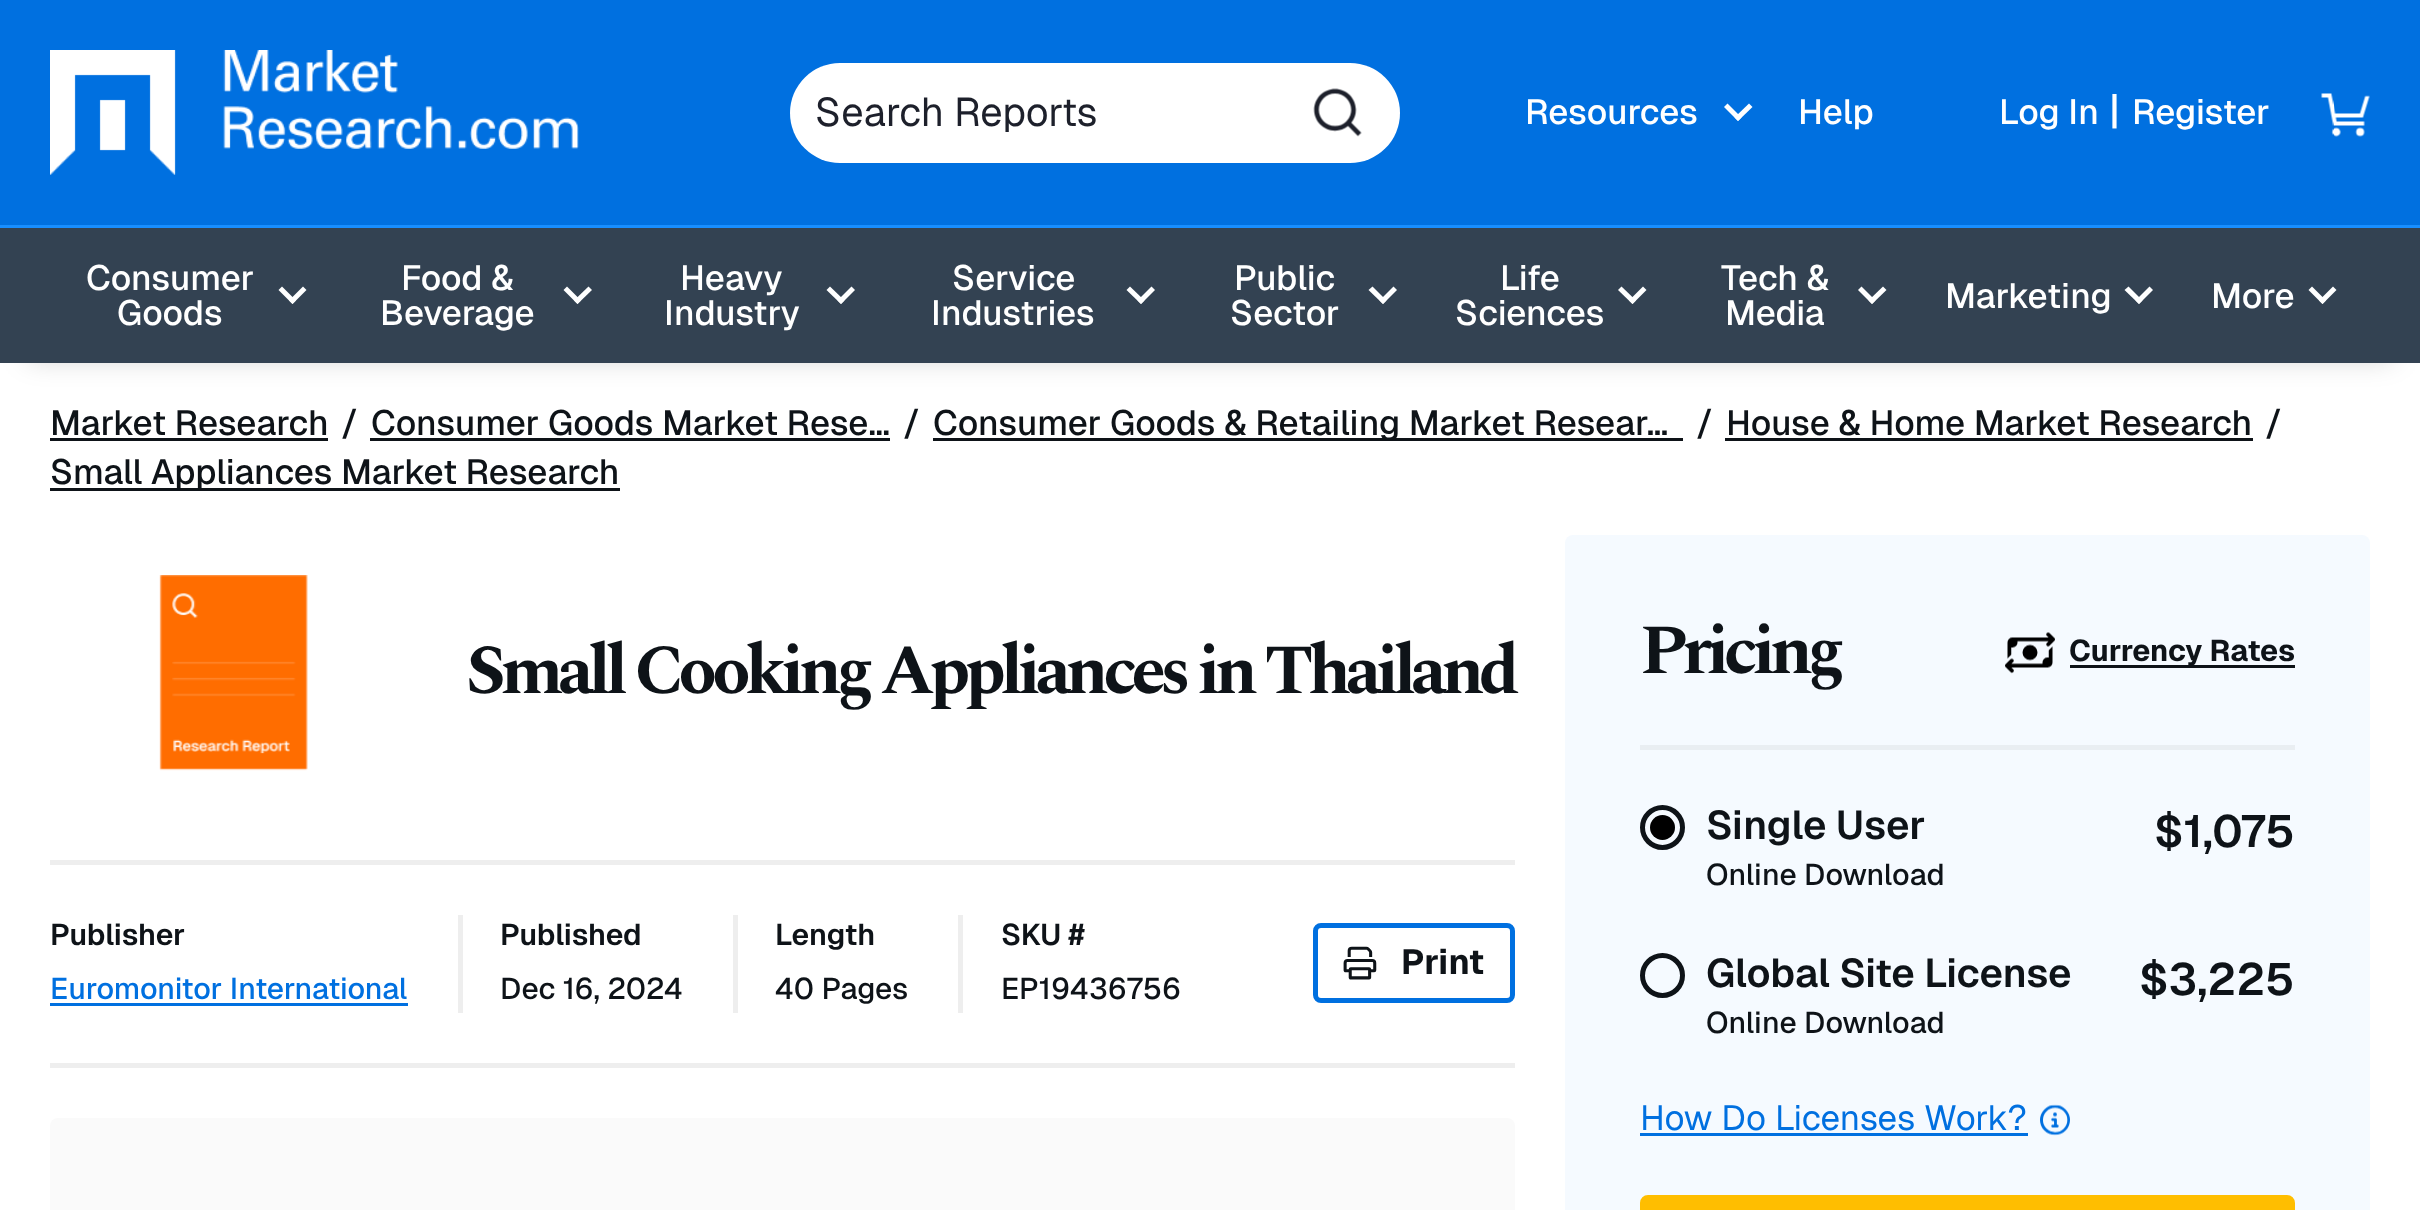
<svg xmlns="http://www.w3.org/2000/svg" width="2420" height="1210">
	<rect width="100%" height="100%" fill="#FFFFFF" />
	<rect x="28" y="50" width="2365" height="308" fill="#000000" fill-opacity="0.2" filter="blur(14px)" />
	<rect x="0" y="0" width="2420" height="225" fill="#0070E0" />
	<image x="50" y="50" width="529" height="125" href="assets/img1.png" />
	<rect x="790" y="63" width="610" height="100" rx="50" fill="#FFFFFF" />
	<text x="815" y="126" font-family="Geist" font-size="40" fill="#1D202B">Search Reports</text>
	<image x="1313" y="88" width="49" height="49" href="assets/img2.png" />
	<text x="1525" y="124" font-family="Geist" font-size="35" font-weight="500" fill="#FFFFFF">Resources</text>
	<path d="M1749 103.5L1752.5 107L1738 121L1734.5 117.5Z" fill="#FFFFFF" />
	<path d="M1727.5 103.5L1741.5 117.5L1738 121L1724 107Z" fill="#FFFFFF" />
	<g font-family="Geist" font-size="35" font-weight="500" fill="#FFFFFF">
		<text x="1798" y="124">Help</text>
		<text x="1999" y="124">Log In</text>
	</g>
	<text x="2109" y="124" font-family="Geist" font-size="40" font-weight="500" fill="#FFFFFF">|</text>
	<text x="2132" y="124" font-family="Geist" font-size="35" font-weight="500" fill="#FFFFFF">Register</text>
	<image x="2321" y="93" width="49" height="44" href="assets/img3.png" />
	<rect x="0" y="228" width="2420" height="135" fill="#334252" />
	<rect x="0" y="225" width="2420" height="3" fill="#188EFF" />
	<text x="86" y="290" font-family="Geist" font-size="35" font-weight="500" fill="#FFFFFF">Consumer</text>
	<path d="M303 286.5L306.5 290L292.5 304L289 300.5Z" fill="#FFFFFF" />
	<path d="M282 286.5L296 300.5L292.5 304L278.5 290Z" fill="#FFFFFF" />
	<g font-family="Geist" font-size="35" font-weight="500" fill="#FFFFFF">
		<text x="117" y="325">Goods</text>
		<text x="401" y="290">Food &amp;</text>
	</g>
	<path d="M588.5 286.5L592 290L577.5 304L574 300.5Z" fill="#FFFFFF" />
	<path d="M567 286.5L581 300.5L577.5 304L563.5 290Z" fill="#FFFFFF" />
	<g font-family="Geist" font-size="35" font-weight="500" fill="#FFFFFF">
		<text x="380" y="325">Beverage</text>
		<text x="680" y="290">Heavy</text>
	</g>
	<path d="M851.5 286.5L855 290L841 304L837.5 300.5Z" fill="#FFFFFF" />
	<path d="M830 286.5L844.5 300.5L841 304L826.5 290Z" fill="#FFFFFF" />
	<g font-family="Geist" font-size="35" font-weight="500" fill="#FFFFFF">
		<text x="664" y="325">Industry</text>
		<text x="952" y="290">Service</text>
	</g>
	<path d="M1151.5 286.5L1155 290L1141 304L1137.5 300.5Z" fill="#FFFFFF" />
	<path d="M1130 286.5L1144.5 300.5L1141 304L1126.5 290Z" fill="#FFFFFF" />
	<g font-family="Geist" font-size="35" font-weight="500" fill="#FFFFFF">
		<text x="931" y="325">Industries</text>
		<text x="1234" y="290">Public</text>
	</g>
	<path d="M1393.5 286.5L1397 290L1383 304L1379.5 300.5Z" fill="#FFFFFF" />
	<path d="M1372.5 286.5L1386.5 300.5L1383 304L1368.5 290Z" fill="#FFFFFF" />
	<g font-family="Geist" font-size="35" font-weight="500" fill="#FFFFFF">
		<text x="1230" y="325">Sector</text>
		<text x="1500" y="290">Life</text>
	</g>
	<path d="M1643 286.5L1646.5 290L1632.5 304L1629 300.5Z" fill="#FFFFFF" />
	<path d="M1621.5 286.5L1636 300.5L1632.5 304L1618 290Z" fill="#FFFFFF" />
	<g font-family="Geist" font-size="35" font-weight="500" fill="#FFFFFF">
		<text x="1455" y="325">Sciences</text>
		<text x="1721" y="290">Tech &amp;</text>
	</g>
	<path d="M1883 286.5L1886.5 290L1872 304L1868.5 300.5Z" fill="#FFFFFF" />
	<path d="M1861.5 286.5L1875.5 300.5L1872 304L1858 290Z" fill="#FFFFFF" />
	<g font-family="Geist" font-size="35" font-weight="500" fill="#FFFFFF">
		<text x="1725" y="325">Media</text>
		<text x="1945" y="308">Marketing</text>
	</g>
	<path d="M2149.5 286.5L2153 290L2139 304L2135.5 300.5Z" fill="#FFFFFF" />
	<path d="M2128.5 286.5L2142.5 300.5L2139 304L2124.5 290Z" fill="#FFFFFF" />
	<text x="2211" y="308" font-family="Geist" font-size="35" font-weight="500" fill="#FFFFFF">More</text>
	<path d="M2333 286.5L2336.5 290L2322.5 304L2319 300.5Z" fill="#FFFFFF" />
	<path d="M2312 286.5L2326 300.5L2322.5 304L2308.5 290Z" fill="#FFFFFF" />
	<text x="50" y="435" font-family="Geist" font-size="35" font-weight="500" fill="#0E1318">Market Research</text>
	<rect x="50" y="438" width="278" height="3" fill="#0E1318" />
	<g font-family="Geist" font-size="35" font-weight="500" fill="#0E1318">
		<text x="341" y="435">/</text>
		<text x="371" y="435">Consumer Goods Market Rese…</text>
	</g>
	<rect x="370" y="438" width="520" height="3" fill="#0E1318" />
	<text x="903" y="435" font-family="Geist" font-size="35" font-weight="500" fill="#0E1318">/</text>
	<rect x="933" y="438" width="750" height="3" fill="#0E1318" />
	<g font-family="Geist" font-size="35" font-weight="500" fill="#0E1318">
		<text x="933" y="435">Consumer Goods &amp; Retailing Market Resear…</text>
		<text x="1696" y="435">/</text>
		<text x="1726" y="435">House &amp; Home Market Research</text>
	</g>
	<rect x="1725" y="438" width="528" height="3" fill="#0E1318" />
	<text x="2265" y="435" font-family="Geist" font-size="35" font-weight="500" fill="#0E1318">/</text>
	<rect x="50" y="488" width="570" height="3" fill="#0E1318" />
	<text x="50" y="484" font-family="Geist" font-size="35" font-weight="500" fill="#0E1318">Small Appliances Market Research</text>
	<image x="159" y="575" width="149" height="196" href="assets/img4.png" />
	<text x="466" y="693" font-family="Spectral" font-size="70" font-weight="700" letter-spacing="-5.6" fill="#0E1318">Small Cooking Appliances in Thailand</text>
	<rect x="50" y="860" width="1465" height="5" fill="#EEEEEE" />
	<rect x="50" y="1063" width="1465" height="5" fill="#EEEEEE" />
	<rect x="458" y="915" width="5" height="98" fill="#EEEEEE" />
	<text x="50" y="945" font-family="Geist" font-size="30" font-weight="600" fill="#0E1318">Publisher</text>
	<text x="50" y="999" font-family="Geist" font-size="30" font-weight="500" fill="#0070E0">Euromonitor International</text>
	<rect x="50" y="1003" width="358" height="3" fill="#0070E0" />
	<rect x="733" y="915" width="5" height="98" fill="#EEEEEE" />
	<text x="500" y="945" font-family="Geist" font-size="30" font-weight="600" fill="#0E1318">Published</text>
	<text x="500" y="999" font-family="Geist" font-size="30" font-weight="500" fill="#0E1318">Dec 16, 2024</text>
	<rect x="958" y="915" width="5" height="98" fill="#EEEEEE" />
	<text x="775" y="945" font-family="Geist" font-size="30" font-weight="600" fill="#0E1318">Length</text>
	<text x="775" y="999" font-family="Geist" font-size="30" font-weight="500" fill="#0E1318">40 Pages</text>
	<text x="1001" y="945" font-family="Geist" font-size="30" font-weight="600" fill="#0E1318">SKU #</text>
	<text x="1001" y="999" font-family="Geist" font-size="30" font-weight="500" fill="#0E1318">EP19436756</text>
	<rect x="1315.5" y="925.5" width="197" height="75" rx="5.5" fill="none" stroke="#0070E0" stroke-width="5" />
	<image x="1343" y="946" width="34" height="34" href="assets/img5.png" />
	<text x="1401" y="974" font-family="Geist" font-size="35" font-weight="700" fill="#0E1318">Print</text>
	<rect x="50" y="1118" width="1465" height="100" rx="8" fill="#FAFAFA" />
	<rect x="1565" y="535" width="805" height="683" rx="8" fill="#F5FAFF" />
	<rect x="1640" y="745" width="655" height="5" fill="#E9EEF2" />
	<text x="1640" y="673" font-family="Spectral" font-size="70" font-weight="700" letter-spacing="-5.6" fill="#0E1318">Pricing</text>
	<image x="2005" y="632" width="50" height="42" href="assets/img6.png" />
	<rect x="2070" y="665" width="225" height="3" fill="#0E1318" />
	<text x="2069" y="661" font-family="Geist" font-size="30" font-weight="700" fill="#0E1318">Currency Rates</text>
	<circle cx="1662.5" cy="827.5" r="20" fill="none" stroke="#0E1318" stroke-width="5" />
	<circle cx="1662.5" cy="827.5" r="12.5" fill="#000000" />
	<text x="1706" y="839" font-family="Geist" font-size="40" font-weight="600" fill="#0E1318">Single User</text>
	<text x="1706" y="885" font-family="Geist" font-size="30" font-weight="500" fill="#0E1318">Online Download</text>
	<text x="2154" y="847" font-family="Geist" font-size="45" font-weight="600" fill="#0E1318">$1,075</text>
	<circle cx="1662.5" cy="975.5" r="20" fill="none" stroke="#0E1318" stroke-width="5" />
	<text x="1706" y="987" font-family="Geist" font-size="40" font-weight="600" fill="#0E1318">Global Site License</text>
	<text x="1706" y="1033" font-family="Geist" font-size="30" font-weight="500" fill="#0E1318">Online Download</text>
	<text x="2139" y="995" font-family="Geist" font-size="45" font-weight="600" fill="#0E1318">$3,225</text>
	<text x="1640" y="1130" font-family="Geist" font-size="35" fill="#0070E0">How Do Licenses Work?</text>
	<rect x="1640" y="1133" width="388" height="3" fill="#0070E0" />
	<image x="2040" y="1104" width="30" height="32" href="assets/img7.png" />
	<rect x="1641.5" y="1196.5" width="652" height="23" rx="6.5" fill="#FFBE00" stroke="#FFBE00" stroke-width="3" />
</svg>
